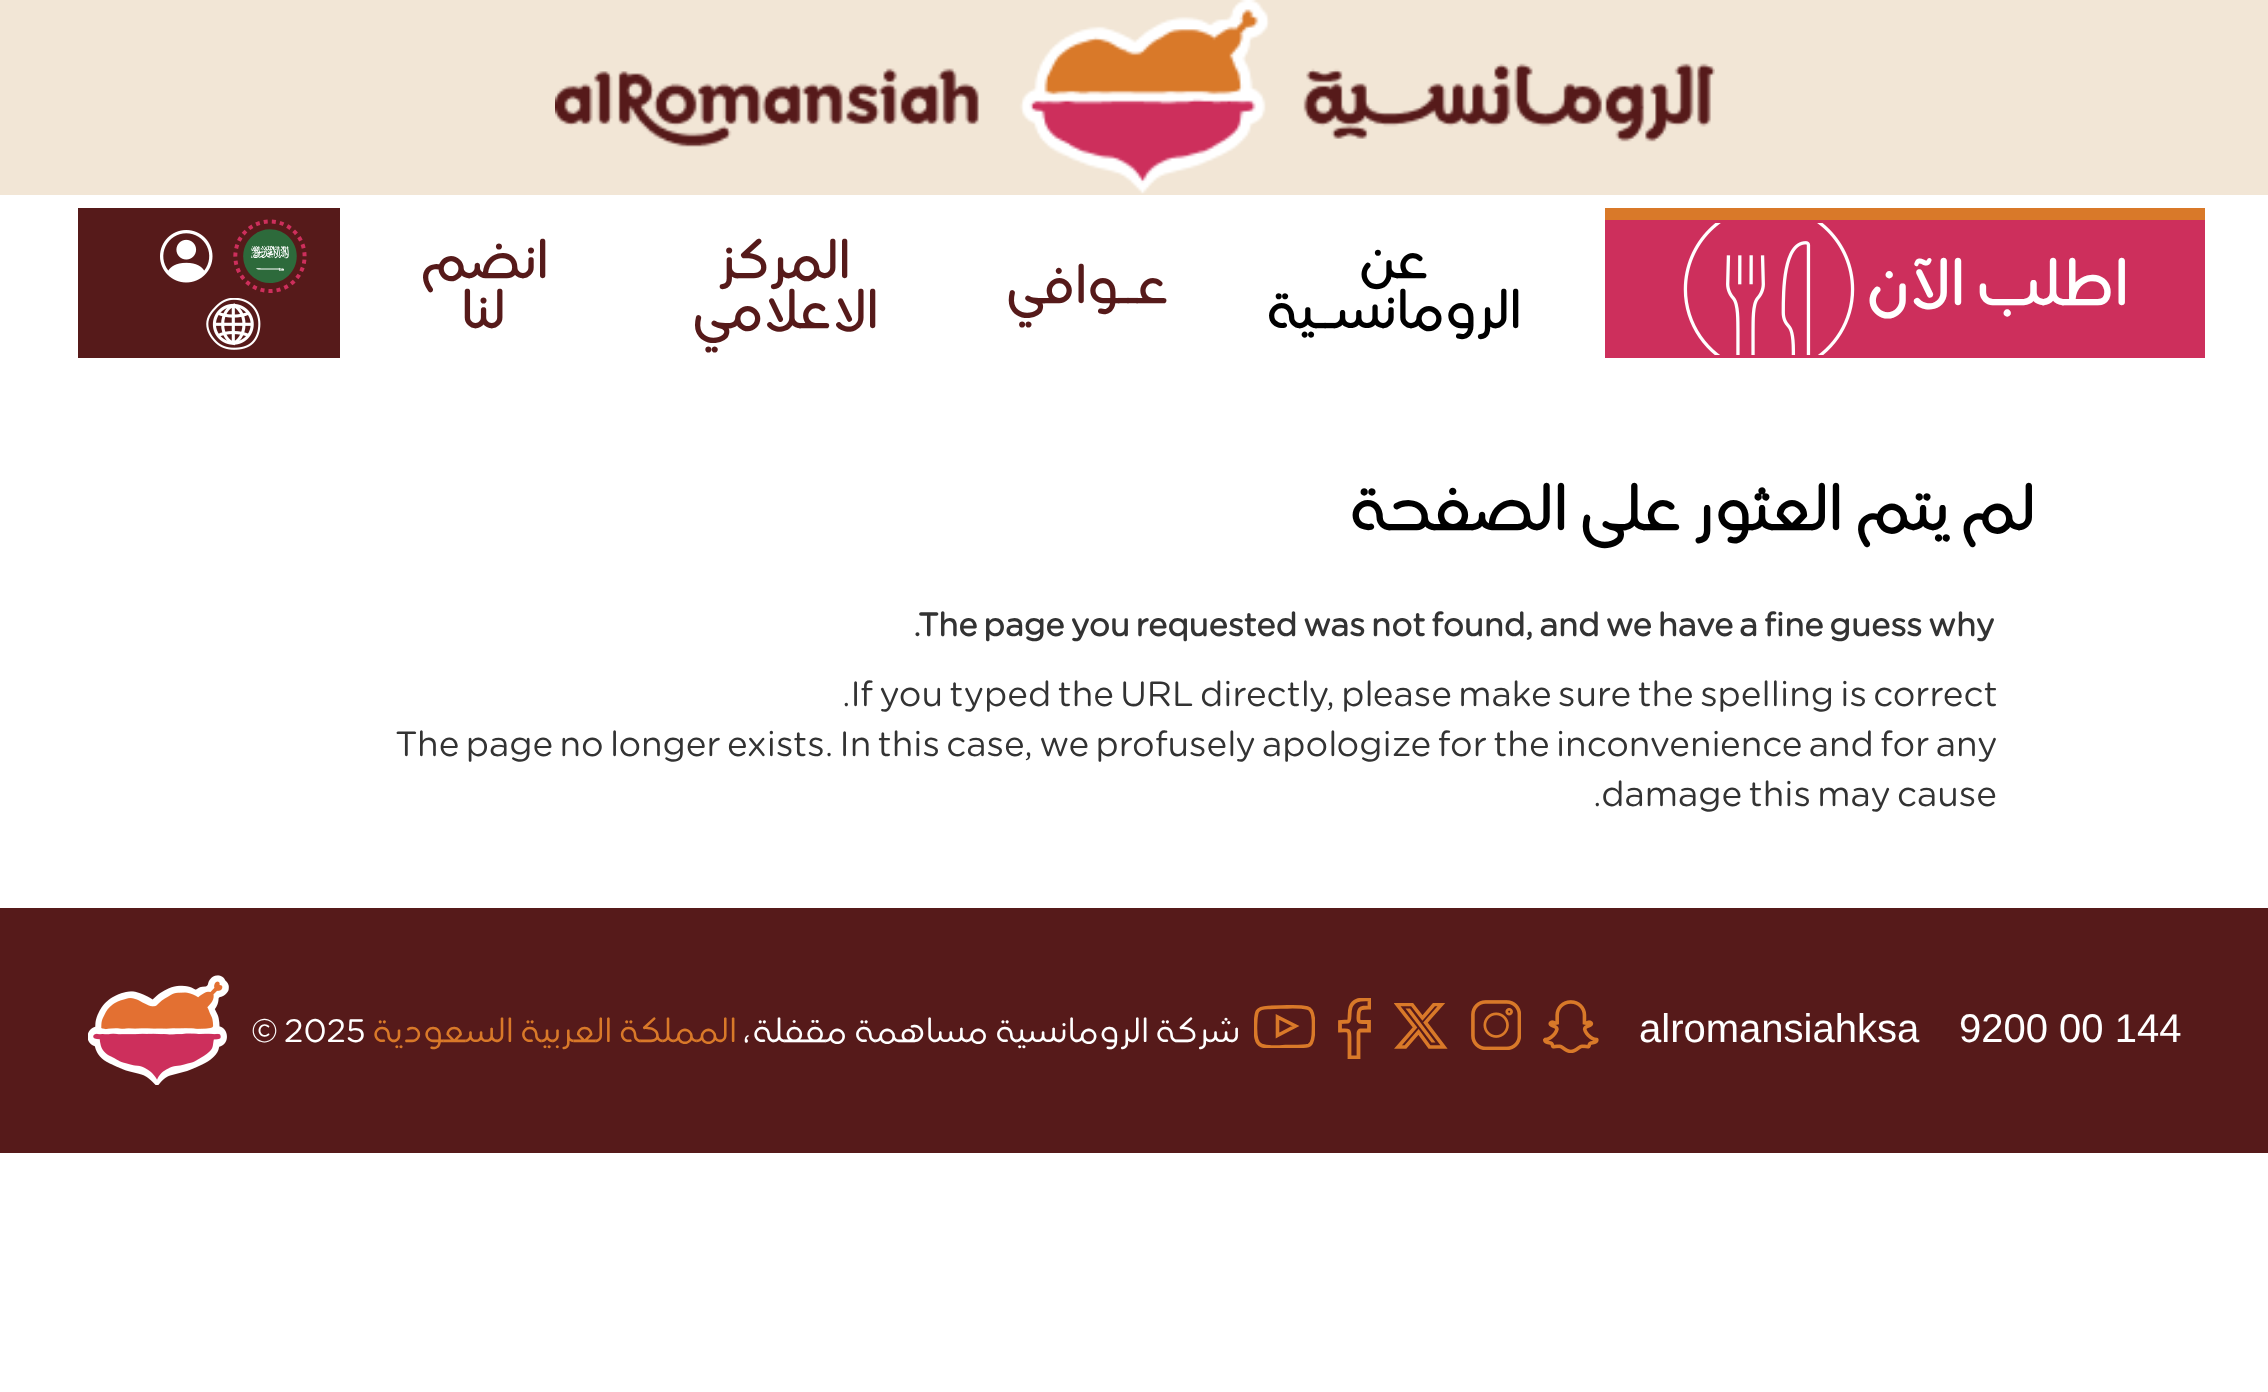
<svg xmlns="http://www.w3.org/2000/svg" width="2268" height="1392">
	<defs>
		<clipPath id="clip1"><rect x="1254" y="1005" width="61" height="43" /></clipPath>
		<clipPath id="clip2"><rect x="1338" y="998" width="33" height="61" /></clipPath>
		<clipPath id="clip3"><rect x="1394" y="1003" width="54" height="46" /></clipPath>
	</defs>
	<rect width="100%" height="100%" fill="#FFFFFF" />
	<rect x="0" y="0" width="2268" height="195" fill="#F2E6D6" />
	<image x="555" y="0" width="1160" height="194" href="assets/img1.png" />
	<rect x="78" y="208" width="262" height="150" fill="#561A1A" />
	<image x="160" y="230" width="53" height="53" href="assets/img2.png" />
	<image x="233" y="219" width="74" height="74" href="assets/img3.png" />
	<image x="206" y="298" width="55" height="52" href="assets/img4.png" />
	<g font-family="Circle" font-size="50" font-weight="700" direction="rtl" fill="#561A1A">
		<text x="548" y="278">انضم</text>
		<text x="505" y="328">لنا</text>
		<text x="850" y="278">المركز</text>
		<text x="878" y="328">الاعلامي</text>
		<text x="1169" y="303">عــوافي</text>
	</g>
	<g font-family="Circle" font-size="50" font-weight="700" direction="rtl" fill="#000000">
		<text x="1429" y="278">عن</text>
		<text x="1521" y="328">الرومانســية</text>
	</g>
	<rect x="1605" y="220" width="600" height="138" fill="#CD2F5C" />
	<rect x="1605" y="208" width="600" height="12" fill="#D97929" />
	<image x="1683" y="223" width="172" height="132" href="assets/img5.png" />
	<text x="2128" y="305" font-family="Circle" font-size="60" font-weight="700" direction="rtl" fill="#FFFFFF">اطلب الآن</text>
	<text x="2035" y="530" font-family="Circle" font-size="60" font-weight="700" direction="rtl" fill="#000000">لم يتم العثور على الصفحة</text>
	<text x="913" y="636" font-family="Circle" font-size="32.5" font-weight="700" fill="#333333">.The page you requested was not found, and we have a fine guess why</text>
	<g font-family="Circle" font-size="35" fill="#333333">
		<text x="842" y="706">.If you typed the URL directly, please make sure the spelling is correct</text>
		<text x="395" y="756">The page no longer exists. In this case, we profusely apologize for the inconvenience and for any</text>
		<text x="1593" y="806">.damage this may cause</text>
	</g>
	<rect x="0" y="908" width="2268" height="245" fill="#561A1A" />
	<image x="88" y="975" width="141" height="110" href="assets/img6.png" />
	<g font-family="Circle" font-size="32.5" fill="#FFFFFF">
		<text x="251" y="1042">©</text>
		<text x="284" y="1042">2025</text>
	</g>
	<text x="737" y="1042" font-family="Circle" font-size="32.5" direction="rtl" fill="#D97929">المملكة العربية السعودية</text>
	<text x="1240" y="1042" font-family="Circle" font-size="32.5" direction="rtl" fill="#FFFFFF">شركة الرومانسية مساهمة مقفلة،</text>
	<g clip-path="url(#clip1)">
		<path d="M1261.5 1045.5C1254.5 1043 1255.5 1031 1255.5 1025.5C1256 1012 1255.5 1008 1268 1007.5L1280.5 1007C1289.5 1007 1299 1006 1307.5 1008C1314.5 1009.5 1313.5 1022.5 1313.5 1027C1313.5 1031 1314 1044 1308.5 1045.5C1301.5 1047 1293 1046.5 1285.5 1046.5C1279.5 1047 1267 1047.5 1261.5 1045.5ZM1277.5 1035.5L1295.5 1026L1277.5 1017Z" fill="none" stroke="#D97929" stroke-width="3.6" />
	</g>
	<g clip-path="url(#clip2)">
		<path d="M1349.5 1057.5H1358.5V1033C1358.5 1031.5 1359.5 1030.5 1360.5 1030.5H1369V1022H1362C1357.5 1022 1358.5 1019.5 1358.5 1015.5C1358.5 1007 1362.5 1007.5 1369.5 1007.5V999.5C1365.5 999.5 1361 999 1357 1000.5C1345.5 1005 1352 1020 1348 1021.5L1340 1022V1030.5C1347.5 1030.5 1349.5 1028.5 1349.5 1037Z" fill="none" stroke="#D97929" stroke-width="3.8" />
	</g>
	<g clip-path="url(#clip3)">
		<path d="M1434 1004.5H1441.5L1425.5 1022.5L1444 1047H1429.5L1418.5 1032L1405.5 1047H1398L1415 1027.5L1397 1004.5H1412L1422.5 1018Z" fill="none" stroke="#D97929" stroke-width="3.6" />
	</g>
	<path d="M1431.5 1042.5H1435.5L1410 1008.5H1405.5Z" fill="#D97929" />
	<image x="1471" y="1000" width="50" height="50" href="assets/img7.png" />
	<image x="1543" y="1000" width="56" height="53" href="assets/img8.png" />
	<g font-family="Liberation Sans" font-size="40" fill="#FFFFFF">
		<text x="1639" y="1042">alromansiahksa</text>
		<text x="1959" y="1042">9200 00 144</text>
	</g>
</svg>
